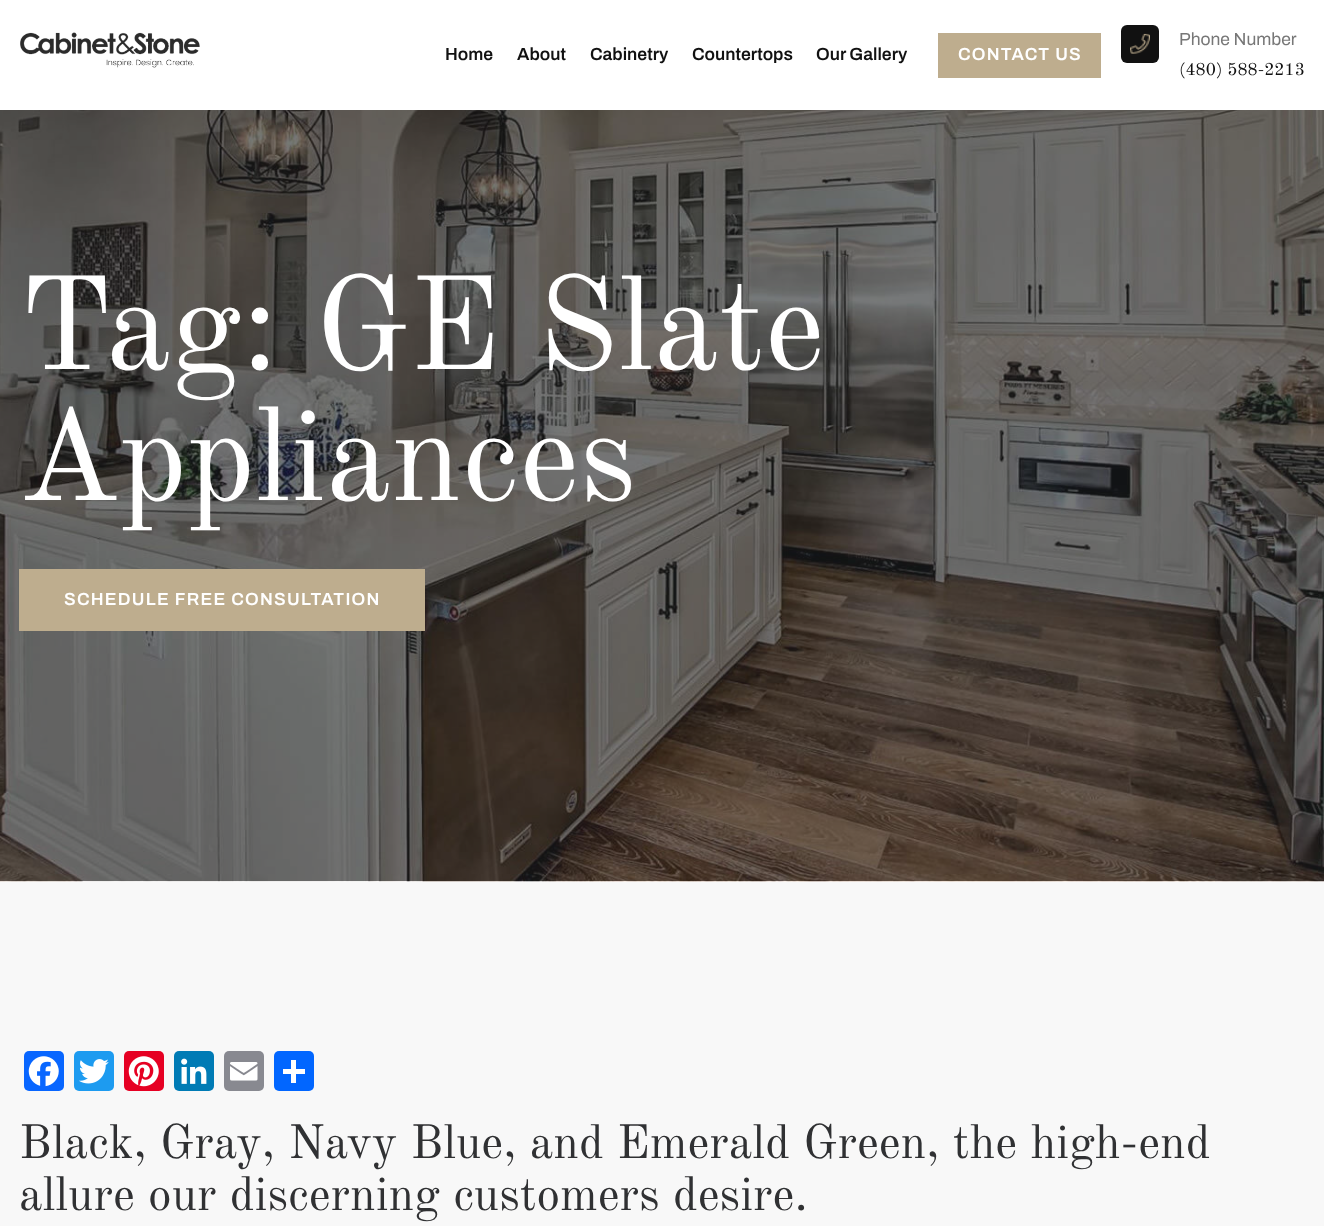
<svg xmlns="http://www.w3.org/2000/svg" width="1324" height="1226">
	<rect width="100%" height="100%" fill="#F8F8F8" />
	<rect x="0" y="0" width="1324" height="110" fill="#FFFFFF" />
	<image x="20" y="32" width="180" height="36" href="assets/img1.png" />
	<g font-family="Archivo" font-size="17.5" font-weight="600" fill="#111111">
		<text x="445" y="60">Home</text>
		<text x="517" y="60">About</text>
		<text x="590" y="60">Cabinetry</text>
		<text x="692" y="60">Countertops</text>
		<text x="816" y="60">Our Gallery</text>
	</g>
	<rect x="938" y="33" width="163" height="45" fill="#BEAD8E" />
	<text x="958" y="60" font-family="Archivo" font-size="17.5" font-weight="600" letter-spacing="1.25" fill="#FFFFFF">CONTACT US</text>
	<rect x="1121" y="25" width="38" height="38" rx="6" fill="#111111" />
	<image x="1130" y="33" width="20" height="21" href="assets/img2.png" />
	<text x="1179" y="45" font-family="Archivo" font-size="17.5" fill="#777777">Phone Number</text>
	<text x="1179" y="75" font-family="Old Standard TT" font-size="17.5" fill="#111111">(480) 588-2213</text>
	<image x="0" y="110" width="1324" height="772" href="assets/img3.png" />
	<g font-family="Old Standard TT" font-size="131.25" fill="#FFFFFF">
		<text x="19" y="369">Tag: GE Slate</text>
		<text x="19" y="500">Appliances</text>
	</g>
	<rect x="19" y="569" width="406" height="62" fill="#BEAD8E" />
	<text x="64" y="605" font-family="Archivo" font-size="17.5" font-weight="600" letter-spacing="1.25" fill="#FFFFFF">SCHEDULE FREE CONSULTATION</text>
	<rect x="24" y="1051" width="40" height="40" rx="5" fill="#0866FF" />
	<image x="28" y="1056" width="31" height="31" href="assets/img4.png" />
	<rect x="74" y="1051" width="40" height="40" rx="5" fill="#1D9BF0" />
	<image x="79" y="1059" width="30" height="25" href="assets/img5.png" />
	<rect x="124" y="1051" width="40" height="40" rx="5" fill="#E60023" />
	<image x="128" y="1056" width="31" height="31" href="assets/img6.png" />
	<rect x="174" y="1051" width="40" height="40" rx="5" fill="#007BB5" />
	<image x="181" y="1058" width="26" height="26" href="assets/img7.png" />
	<rect x="224" y="1051" width="40" height="40" rx="5" fill="#888990" />
	<image x="230" y="1062" width="28" height="19" href="assets/img8.png" />
	<rect x="274" y="1051" width="40" height="40" rx="5" fill="#0166FF" />
	<rect x="291" y="1060" width="5" height="23" fill="#FFFFFF" />
	<rect x="283" y="1069" width="22" height="5" fill="#FFFFFF" />
	<g font-family="Old Standard TT" font-size="47.5" fill="#303133">
		<text x="19" y="1158">Black, Gray, Navy Blue, and Emerald Green, the high-end</text>
		<text x="19" y="1210">allure our discerning customers desire.</text>
	</g>
</svg>
